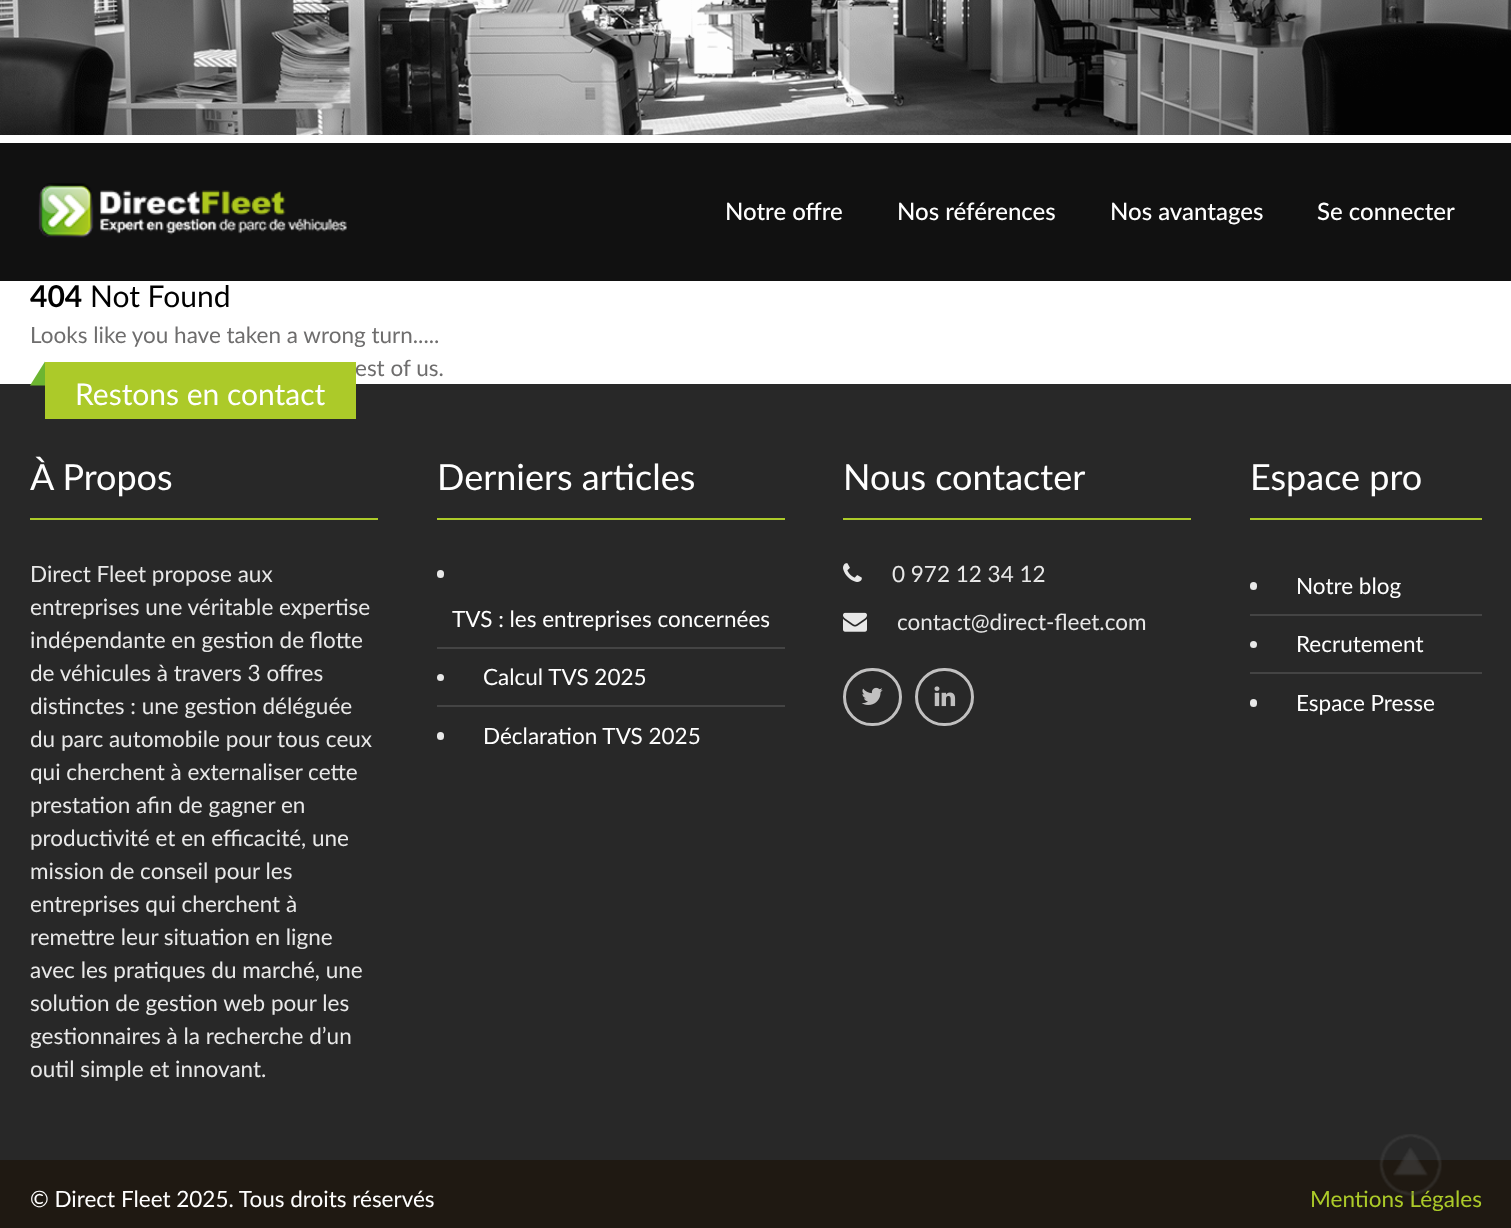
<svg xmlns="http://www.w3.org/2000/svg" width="1511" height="1228">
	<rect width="100%" height="100%" fill="#FFFFFF" />
	<image x="0" y="0" width="1511" height="135" href="assets/img1.png" />
	<rect x="0" y="143" width="1511" height="138" fill="#111111" />
	<image x="38" y="183" width="309" height="55" href="assets/img2.png" />
	<g font-family="Lato" font-size="24" font-weight="500" fill="#FFFFFF">
		<text x="725" y="220">Notre offre</text>
		<text x="897" y="220">Nos références</text>
		<text x="1110" y="220">Nos avantages</text>
		<text x="1317" y="220">Se connecter</text>
	</g>
	<text x="30" y="307" font-family="Lato" font-size="30" font-weight="700" fill="#000000">404</text>
	<text x="90" y="307" font-family="Lato" font-size="30" fill="#000000">Not Found</text>
	<g font-family="Lato" font-size="22.5" fill="#6E6D6D">
		<text x="30" y="343">Looks like you have taken a wrong turn.....</text>
		<text x="355" y="376">est of us.</text>
	</g>
	<rect x="0" y="384" width="1511" height="776" fill="#282828" />
	<rect x="45" y="362" width="311" height="57" fill="#ACCA29" />
	<path d="M45 361.5V385.5H30Z" fill="#6DB531" />
	<text x="75" y="405" font-family="Lato" font-size="30" fill="#FFFFFF">Restons en contact</text>
	<rect x="30" y="518" width="348" height="2" fill="#ACCA29" />
	<text x="30" y="490" font-family="Lato" font-size="36" fill="#FFFFFF">À Propos</text>
	<g font-family="Lato" font-size="22.5" fill="#E8E8E8">
		<text x="30" y="582">Direct Fleet propose aux</text>
		<text x="30" y="615">entreprises une véritable expertise</text>
		<text x="30" y="648">indépendante en gestion de flotte</text>
		<text x="30" y="681">de véhicules à travers 3 offres</text>
		<text x="30" y="714">distinctes : une gestion déléguée</text>
		<text x="30" y="747">du parc automobile pour tous ceux</text>
		<text x="30" y="780">qui cherchent à externaliser cette</text>
		<text x="30" y="813">prestation afin de gagner en</text>
		<text x="30" y="846">productivité et en efficacité, une</text>
		<text x="30" y="879">mission de conseil pour les</text>
		<text x="30" y="912">entreprises qui cherchent à</text>
		<text x="30" y="945">remettre leur situation en ligne</text>
		<text x="30" y="978">avec les pratiques du marché, une</text>
		<text x="30" y="1011">solution de gestion web pour les</text>
		<text x="30" y="1044">gestionnaires à la recherche d’un</text>
		<text x="30" y="1077">outil simple et innovant.</text>
	</g>
	<rect x="437" y="518" width="348" height="2" fill="#ACCA29" />
	<text x="437" y="490" font-family="Lato" font-size="36" fill="#FFFFFF">Derniers articles</text>
	<rect x="437" y="647" width="348" height="2" fill="#444444" />
	<rect x="437" y="570" width="7" height="8" rx="3.5" fill="#E8E8E8" />
	<text x="452" y="627" font-family="Lato" font-size="22.5" fill="#FFFFFF">TVS : les entreprises concernées</text>
	<rect x="437" y="705" width="348" height="2" fill="#444444" />
	<circle cx="440.5" cy="677.5" r="3.5" fill="#E8E8E8" />
	<text x="483" y="685" font-family="Lato" font-size="22.5" fill="#FFFFFF">Calcul TVS 2025</text>
	<rect x="437" y="732" width="7" height="8" rx="3.5" fill="#E8E8E8" />
	<text x="483" y="744" font-family="Lato" font-size="22.5" fill="#FFFFFF">Déclaration TVS 2025</text>
	<rect x="843" y="518" width="348" height="2" fill="#ACCA29" />
	<text x="843" y="490" font-family="Lato" font-size="36" fill="#FFFFFF">Nous contacter</text>
	<image x="843" y="563" width="19" height="19" href="assets/img3.png" />
	<text x="892" y="582" font-family="Lato" font-size="22.5" fill="#E8E8E8">0 972 12 34 12</text>
	<image x="843" y="612" width="24" height="20" href="assets/img4.png" />
	<text x="897" y="630" font-family="Lato" font-size="22.5" fill="#E8E8E8">contact@direct-fleet.com</text>
	<rect x="844.5" y="669.5" width="56" height="55" rx="27.5" fill="none" stroke="#C1C0C0" stroke-width="3" />
	<image x="861" y="687" width="22" height="18" href="assets/img5.png" />
	<rect x="916.5" y="669.5" width="56" height="55" rx="27.5" fill="none" stroke="#C1C0C0" stroke-width="3" />
	<image x="934" y="686" width="22" height="21" href="assets/img6.png" />
	<rect x="1250" y="518" width="232" height="2" fill="#ACCA29" />
	<text x="1250" y="490" font-family="Lato" font-size="36" fill="#FFFFFF">Espace pro</text>
	<rect x="1250" y="614" width="232" height="2" fill="#444444" />
	<rect x="1250" y="582" width="7" height="8" rx="3.5" fill="#E8E8E8" />
	<text x="1296" y="594" font-family="Lato" font-size="22.5" fill="#FFFFFF">Notre blog</text>
	<rect x="1250" y="672" width="232" height="2" fill="#444444" />
	<circle cx="1253.5" cy="644.5" r="3.5" fill="#E8E8E8" />
	<text x="1296" y="652" font-family="Lato" font-size="22.5" fill="#FFFFFF">Recrutement</text>
	<rect x="1250" y="699" width="7" height="8" rx="3.5" fill="#E8E8E8" />
	<text x="1296" y="711" font-family="Lato" font-size="22.5" fill="#FFFFFF">Espace Presse</text>
	<rect x="0" y="1160" width="1511" height="68" fill="#1F1912" />
	<text x="30" y="1207" font-family="Lato" font-size="22.5" fill="#FFFFFF">© Direct Fleet 2025. Tous droits réservés</text>
	<text x="1310" y="1207" font-family="Lato" font-size="22.5" fill="#ACCA29">Mentions Légales</text>
	<image x="1379" y="1134" width="63" height="62" href="assets/img7.png" />
</svg>
